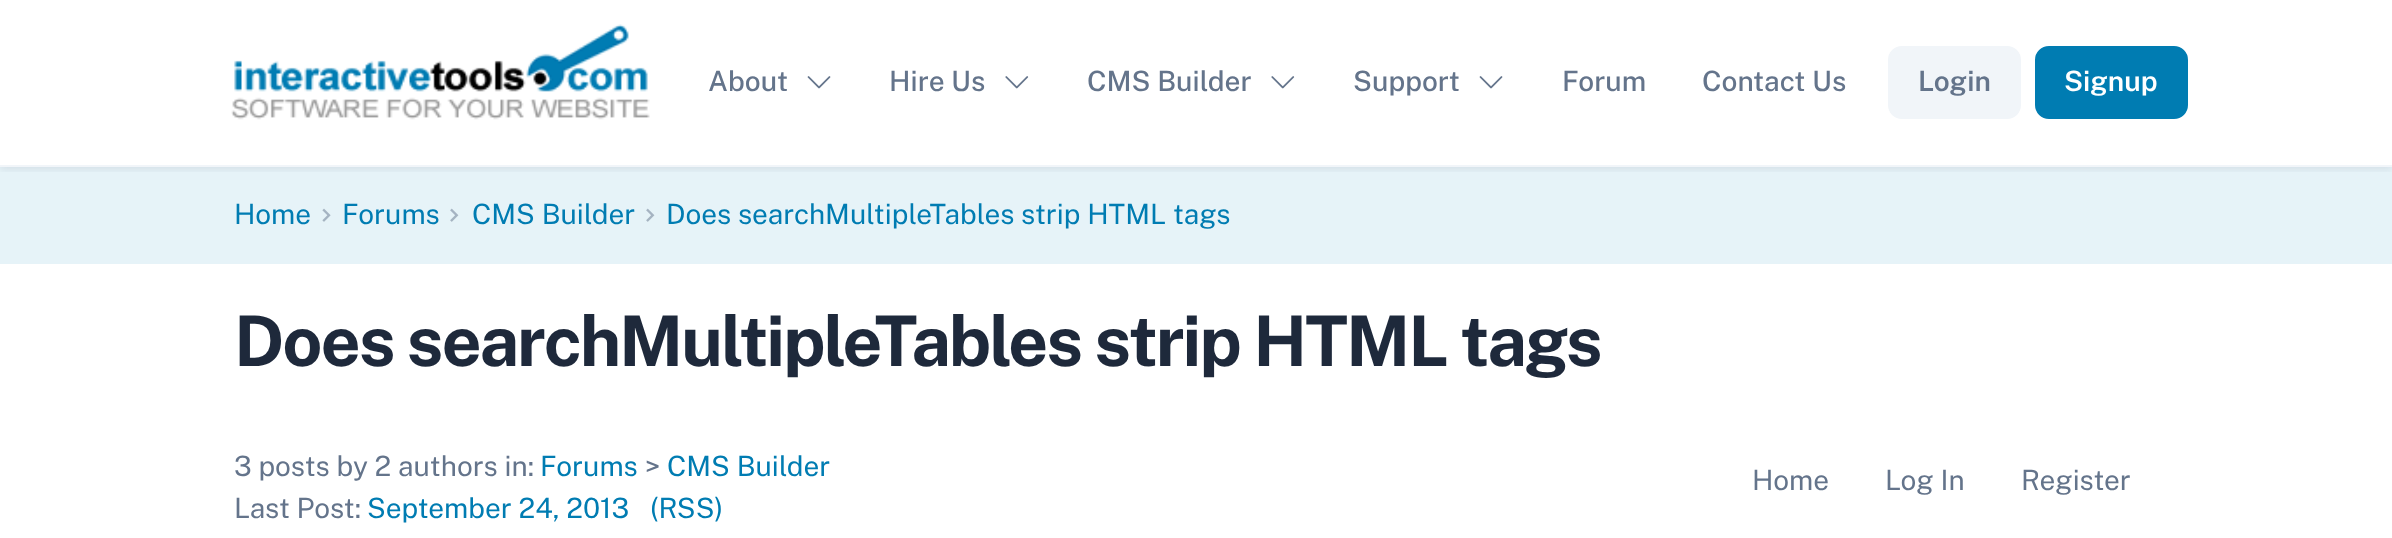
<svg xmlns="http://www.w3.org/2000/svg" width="2392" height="538">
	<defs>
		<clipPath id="clip1"><rect x="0" y="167" width="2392" height="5" /></clipPath>
	</defs>
	<rect width="100%" height="100%" fill="#FFFFFF" />
	<rect x="0" y="167" width="2392" height="97" fill="#E6F3F8" />
	<g clip-path="url(#clip1)">
		<rect x="0" y="4" width="2392" height="166" fill="#020617" fill-opacity="0.07" filter="blur(3.5px)" />
	</g>
	<rect x="0" y="165" width="2392" height="2" fill="#F1F5F9" />
	<image x="231" y="24" width="419" height="96" href="assets/img1.png" />
	<text x="708" y="91" font-family="Public Sans" font-size="28" font-weight="500" fill="#64748B">About</text>
	<image x="807" y="76" width="24" height="13" href="assets/img2.png" />
	<text x="889" y="91" font-family="Public Sans" font-size="28" font-weight="500" fill="#64748B">Hire Us</text>
	<image x="1005" y="76" width="24" height="13" href="assets/img3.png" />
	<text x="1087" y="91" font-family="Public Sans" font-size="28" font-weight="500" fill="#64748B">CMS Builder</text>
	<image x="1271" y="76" width="24" height="13" href="assets/img3.png" />
	<text x="1353" y="91" font-family="Public Sans" font-size="28" font-weight="500" fill="#64748B">Support</text>
	<image x="1479" y="76" width="24" height="13" href="assets/img2.png" />
	<g font-family="Public Sans" font-size="28" font-weight="500" fill="#64748B">
		<text x="1562" y="91">Forum</text>
		<text x="1702" y="91">Contact Us</text>
	</g>
	<rect x="1889" y="47" width="131" height="71" rx="13" fill="#F1F5F9" stroke="#F1F5F9" stroke-width="2" />
	<text x="1918" y="91" font-family="Public Sans" font-size="28" font-weight="600" fill="#64748B">Login</text>
	<rect x="2036" y="47" width="151" height="71" rx="13" fill="#007CB2" stroke="#007CB2" stroke-width="2" />
	<text x="2064" y="91" font-family="Public Sans" font-size="28" font-weight="600" fill="#FFFFFF">Signup</text>
	<text x="234" y="224" font-family="Public Sans" font-size="28" fill="#007CB2">Home</text>
	<image x="322" y="208" width="9" height="14" href="assets/img4.png" />
	<text x="342" y="224" font-family="Public Sans" font-size="28" fill="#007CB2">Forums</text>
	<image x="450" y="208" width="9" height="14" href="assets/img5.png" />
	<text x="472" y="224" font-family="Public Sans" font-size="28" fill="#007CB2">CMS Builder</text>
	<image x="646" y="208" width="9" height="14" href="assets/img5.png" />
	<text x="666" y="224" font-family="Public Sans" font-size="28" fill="#007CB2">Does searchMultipleTables strip HTML tags</text>
	<text x="234" y="366" font-family="Public Sans" font-size="70" font-weight="700" letter-spacing="-2.1" fill="#1E293B">Does searchMultipleTables strip HTML tags</text>
	<text x="234" y="476" font-family="Public Sans" font-size="28" fill="#64748B">3 posts by 2 authors in:</text>
	<text x="540" y="476" font-family="Public Sans" font-size="28" fill="#007CB2">Forums</text>
	<text x="645" y="476" font-family="Public Sans" font-size="28" fill="#64748B">&gt;</text>
	<text x="667" y="476" font-family="Public Sans" font-size="28" fill="#007CB2">CMS Builder</text>
	<text x="234" y="518" font-family="Public Sans" font-size="28" fill="#64748B">Last Post:</text>
	<g font-family="Public Sans" font-size="28" fill="#007CB2">
		<text x="367" y="518">September 24, 2013</text>
		<text x="650" y="518">(RSS)</text>
	</g>
	<g font-family="Public Sans" font-size="28" fill="#64748B">
		<text x="1752" y="490">Home</text>
		<text x="1885" y="490">Log In</text>
		<text x="2021" y="490">Register</text>
	</g>
</svg>
